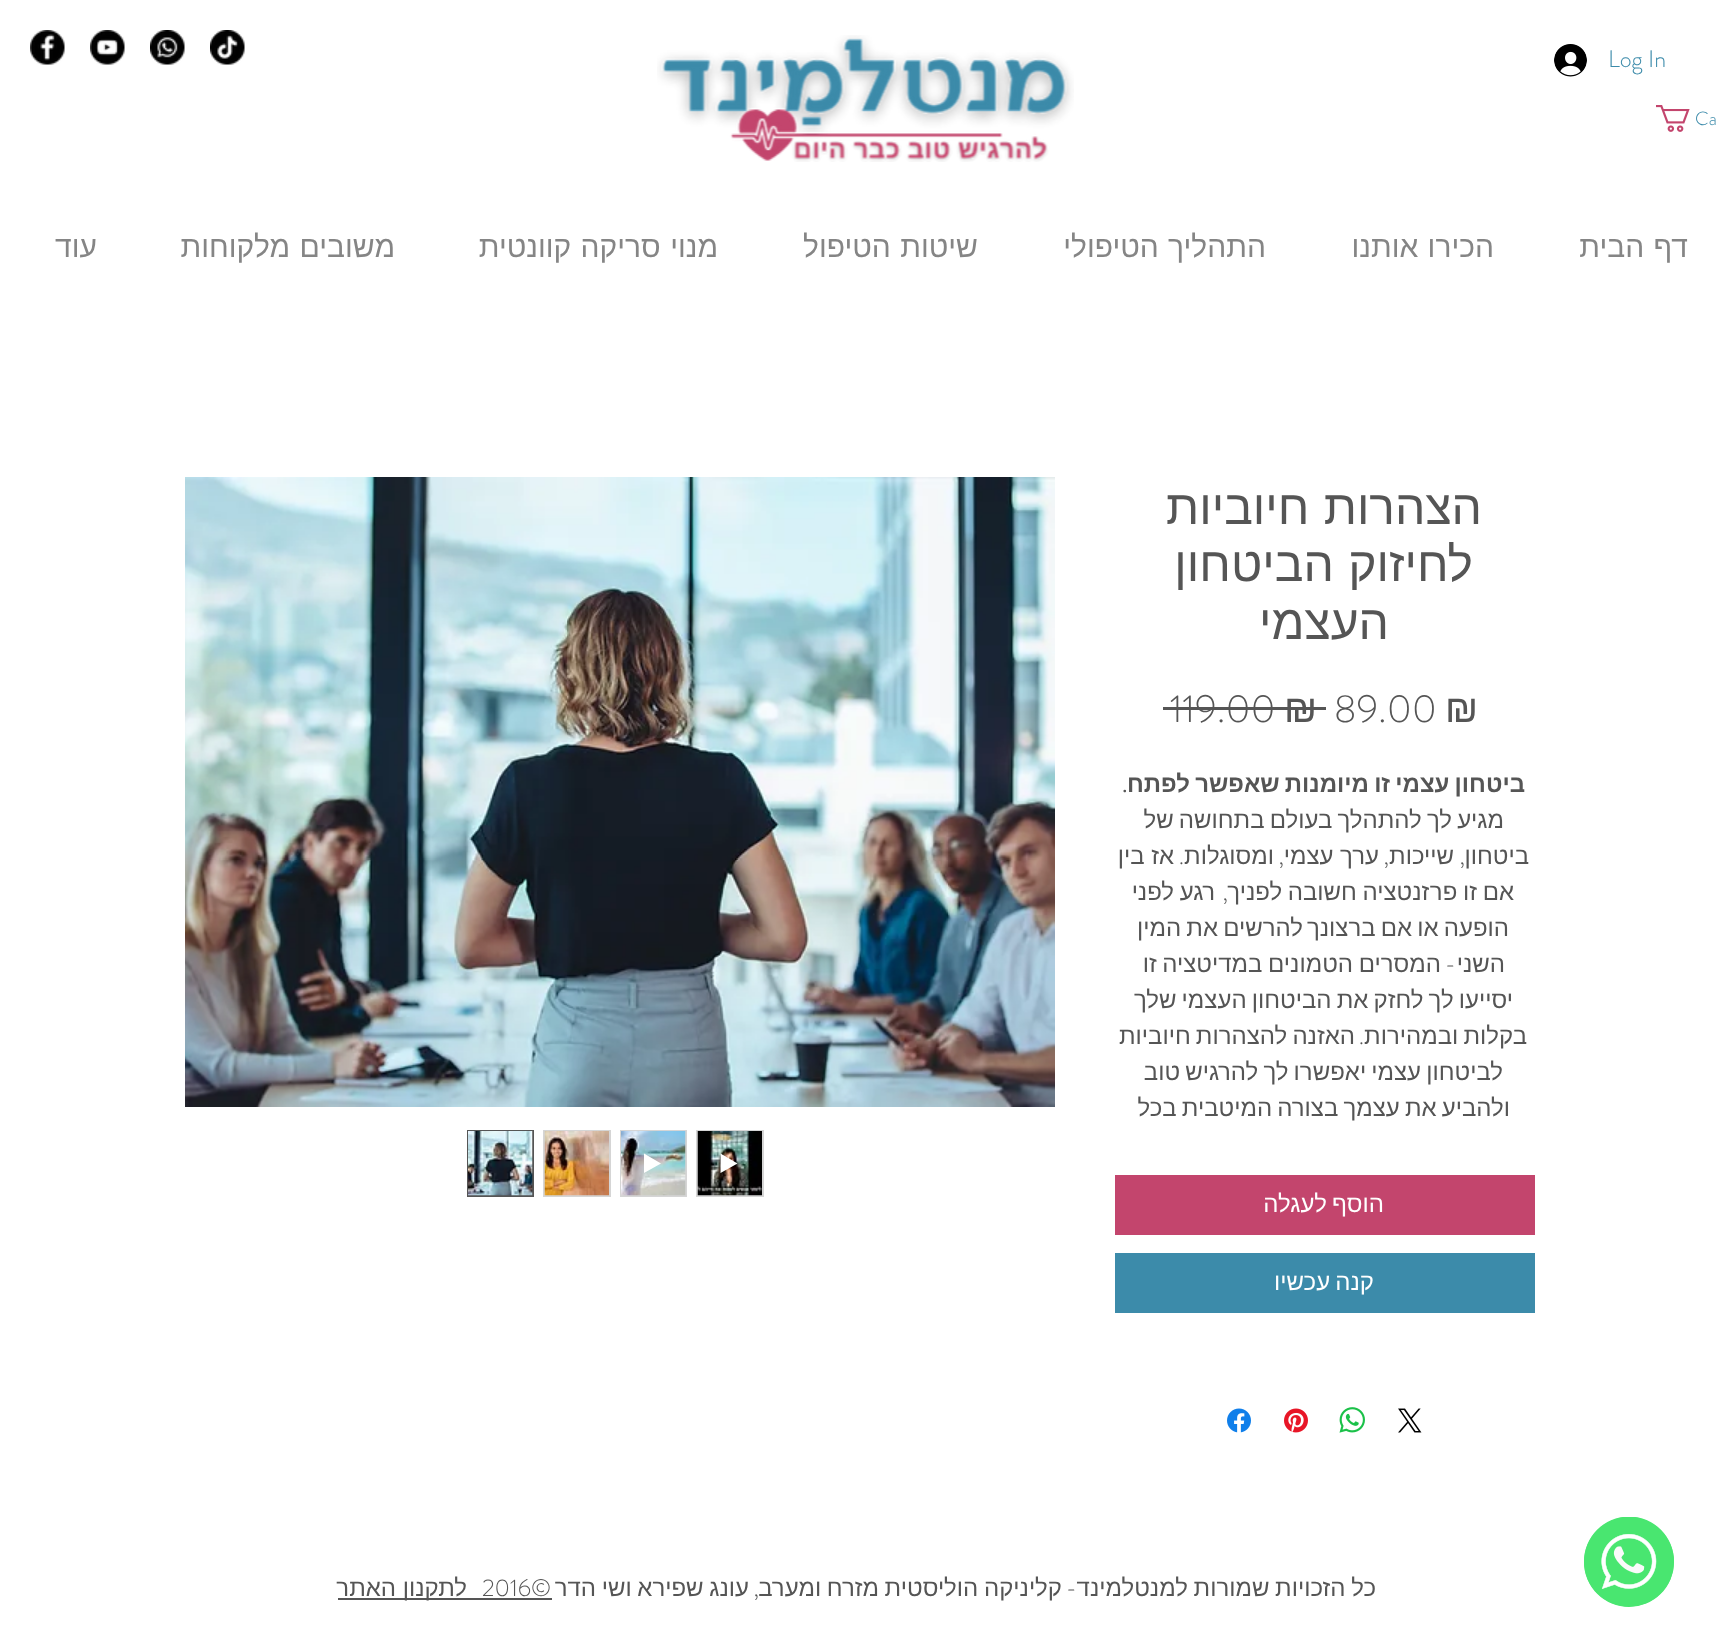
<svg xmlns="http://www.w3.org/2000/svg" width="1717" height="1643">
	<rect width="100%" height="100%" fill="#FFFFFF" />
	<text x="1608" y="67" font-family="'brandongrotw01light'" font-size="24" font-weight="300" fill="#3C8BAA">Log In</text>
	<image x="1554" y="44" width="33" height="33" href="assets/img1.png" />
	<image x="210" y="30" width="35" height="35" href="assets/img2.png" />
	<image x="150" y="30" width="35" height="35" href="assets/img3.png" />
	<image x="90" y="30" width="35" height="35" href="assets/img4.png" />
	<image x="30" y="30" width="35" height="35" href="assets/img5.png" />
	<image x="1656" y="105" width="34" height="27" href="assets/img6.png" />
	<text x="1695" y="125" font-family="'brandongrotw01light'" font-size="19" font-weight="300" fill="#3C8BAA">Ca</text>
	<image x="657" y="35" width="417" height="127" href="assets/img7.png" />
	<g font-family="Liberation Sans" font-size="30" direction="rtl" fill="#858585">
		<text x="1688" y="257" word-spacing="1">דף הבית</text>
		<text x="1494" y="257" word-spacing="1">הכירו אותנו</text>
		<text x="1266" y="257" word-spacing="1">התהליך הטיפולי</text>
		<text x="978" y="257" word-spacing="1">שיטות הטיפול</text>
		<text x="718" y="257" word-spacing="1">מנוי סריקה קוונטית</text>
		<text x="395" y="257" word-spacing="1">משובים מלקוחות</text>
		<text x="97" y="257">עוד</text>
	</g>
	<g font-family="Liberation Sans" font-size="48" direction="rtl" fill="#555555">
		<text x="1482" y="524" word-spacing="1">הצהרות חיוביות</text>
		<text x="1473" y="581" word-spacing="1">לחיזוק הביטחון</text>
		<text x="1389" y="639">העצמי</text>
	</g>
	<text x="1445" y="722" font-family="Liberation Sans" font-size="39" fill="#555555">₪</text>
	<text x="1334" y="722" font-family="'brandongrotw01light'" font-size="39" font-weight="300" fill="#555555">89.00</text>
	<text x="1284" y="722" font-family="Liberation Sans" font-size="39" fill="#555555">₪</text>
	<text x="1170" y="722" font-family="'brandongrotw01light'" font-size="39" font-weight="300" fill="#555555">119.00</text>
	<rect x="1163" y="707" width="163" height="3" fill="#555555" />
	<text x="1525" y="792" word-spacing="-1.5" font-family="Liberation Sans" font-size="24" font-weight="700" direction="rtl" fill="#555555">ביטחון עצמי זו מיומנות שאפשר לפתח</text>
	<text x="1127" y="792" font-family="'brandongrotw01light'" font-size="24" font-weight="700" direction="rtl" fill="#555555">.</text>
	<g font-family="Liberation Sans" font-size="24" direction="rtl" fill="#555555">
		<text x="1504" y="828" word-spacing="-1.5">מגיע לך להתהלך בעולם בתחושה של</text>
		<text x="1529" y="864">ביטחון</text>
	</g>
	<text x="1465" y="864" font-family="'brandongrotw01light'" font-size="24" font-weight="300" direction="rtl" fill="#555555">,</text>
	<text x="1454" y="864" font-family="Liberation Sans" font-size="24" direction="rtl" fill="#555555">שייכות</text>
	<text x="1389" y="864" font-family="'brandongrotw01light'" font-size="24" font-weight="300" direction="rtl" fill="#555555">,</text>
	<text x="1379" y="864" font-family="Liberation Sans" font-size="24" direction="rtl" fill="#555555">ערך עצמי</text>
	<text x="1284" y="864" font-family="'brandongrotw01light'" font-size="24" font-weight="300" direction="rtl" fill="#555555">,</text>
	<text x="1274" y="864" font-family="Liberation Sans" font-size="24" direction="rtl" fill="#555555">ומסוגלות</text>
	<text x="1184" y="864" font-family="'brandongrotw01light'" font-size="24" font-weight="300" direction="rtl" fill="#555555">.</text>
	<g font-family="Liberation Sans" font-size="24" direction="rtl" fill="#555555">
		<text x="1174" y="864">אז בין</text>
		<text x="1514" y="900" word-spacing="-1">אם זו פרזנטציה חשובה לפניך</text>
	</g>
	<text x="1228" y="900" font-family="'brandongrotw01light'" font-size="24" font-weight="300" direction="rtl" fill="#555555">,</text>
	<g font-family="Liberation Sans" font-size="24" direction="rtl" fill="#555555">
		<text x="1215" y="900" word-spacing="-1">רגע לפני</text>
		<text x="1509" y="936" word-spacing="-1.5">הופעה או אם ברצונך</text>
		<text x="1303" y="936" word-spacing="-1.5">להרשים את המין</text>
		<text x="1505" y="972">השני</text>
	</g>
	<text x="1456" y="972" font-family="'brandongrotw01light'" font-size="24" font-weight="300" direction="rtl" fill="#555555">-</text>
	<g font-family="Liberation Sans" font-size="24" direction="rtl" fill="#555555">
		<text x="1441" y="972" word-spacing="-1">המסרים הטמונים במדיטציה זו</text>
		<text x="1513" y="1008" word-spacing="-1.5">יסייעו לך לחזק את הביטחון העצמי שלך</text>
		<text x="1527" y="1044" word-spacing="-1.5">בקלות ובמהירות</text>
	</g>
	<text x="1364" y="1044" font-family="'brandongrotw01light'" font-size="24" font-weight="300" direction="rtl" fill="#555555">.</text>
	<g font-family="Liberation Sans" font-size="24" direction="rtl" fill="#555555">
		<text x="1355" y="1044" word-spacing="-1.5">האזנה להצהרות חיוביות</text>
		<text x="1503" y="1080" word-spacing="-1.5">לביטחון עצמי יאפשרו לך להרגיש טוב</text>
		<text x="1510" y="1116" word-spacing="-1.5">ולהביע את עצמך בצורה המיטבית בכל</text>
	</g>
	<rect x="1115" y="1175" width="420" height="60" fill="#C3456D" />
	<text x="1384" y="1212" word-spacing="-1.5" font-family="Liberation Sans" font-size="24" direction="rtl" fill="#FFFFFF">הוסף לעגלה</text>
	<rect x="1115" y="1253" width="420" height="60" fill="#3C8BAA" />
	<text x="1374" y="1290" word-spacing="-1.5" font-family="Liberation Sans" font-size="24" direction="rtl" fill="#FFFFFF">קנה עכשיו</text>
	<image x="1398" y="1408" width="24" height="25" href="assets/img8.png" />
	<image x="1339" y="1407" width="26" height="26" href="assets/img9.png" />
	<image x="1284" y="1408" width="24" height="25" href="assets/img10.png" />
	<image x="1227" y="1408" width="24" height="25" href="assets/img11.png" />
	<image x="185" y="477" width="870" height="630" href="assets/img12.png" />
	<rect x="696" y="1130" width="68" height="67" fill="#D5D5D5" />
	<image x="697" y="1131" width="65" height="65" href="assets/img13.png" />
	<path d="M720.5 1153.5V1173L737.5 1163.5Z" fill="#FFFFFF" />
	<rect x="620" y="1130" width="67" height="67" fill="#D5D5D5" />
	<image x="621" y="1131" width="65" height="65" href="assets/img14.png" />
	<path d="M644 1153.5V1173L661 1163.5Z" fill="#FFFFFF" />
	<rect x="543" y="1130" width="68" height="67" fill="#D5D5D5" />
	<image x="544" y="1131" width="65" height="65" href="assets/img15.png" />
	<rect x="468" y="1131" width="65" height="65" fill="none" stroke="#555555" stroke-width="2" />
	<image x="468" y="1131" width="65" height="65" href="assets/img16.png" />
	<text x="1376" y="1596" word-spacing="-1" font-family="Liberation Sans" font-size="24" direction="rtl" fill="#555555">כל הזכויות שמורות למנטלמינד</text>
	<text x="1077" y="1596" font-family="'brandongrotw01light'" font-size="24" font-weight="300" direction="rtl" fill="#555555">-</text>
	<g font-family="Liberation Sans" font-size="24" direction="rtl" fill="#555555">
		<text x="1062" y="1596" word-spacing="-1">קליניקה הוליסטית מזרח ומערב</text>
		<text x="749" y="1596" word-spacing="-1">עונג שפירא ושי הדר</text>
	</g>
	<text x="482" y="1596" font-family="'brandongrotw01light'" font-size="24" font-weight="300" fill="#555555">2016©</text>
	<rect x="338" y="1598" width="214" height="2" fill="#555555" />
	<text x="467" y="1596" font-family="Liberation Sans" font-size="24" direction="rtl" fill="#555555">לתקנון האתר</text>
	<text x="759" y="1596" font-family="'brandongrotw01light'" font-size="24" font-weight="300" direction="rtl" fill="#555555">,</text>
	<circle cx="1629" cy="1562" r="45" fill="#49E670" />
	<image x="1584" y="1517" width="90" height="90" href="assets/img17.png" />
</svg>
